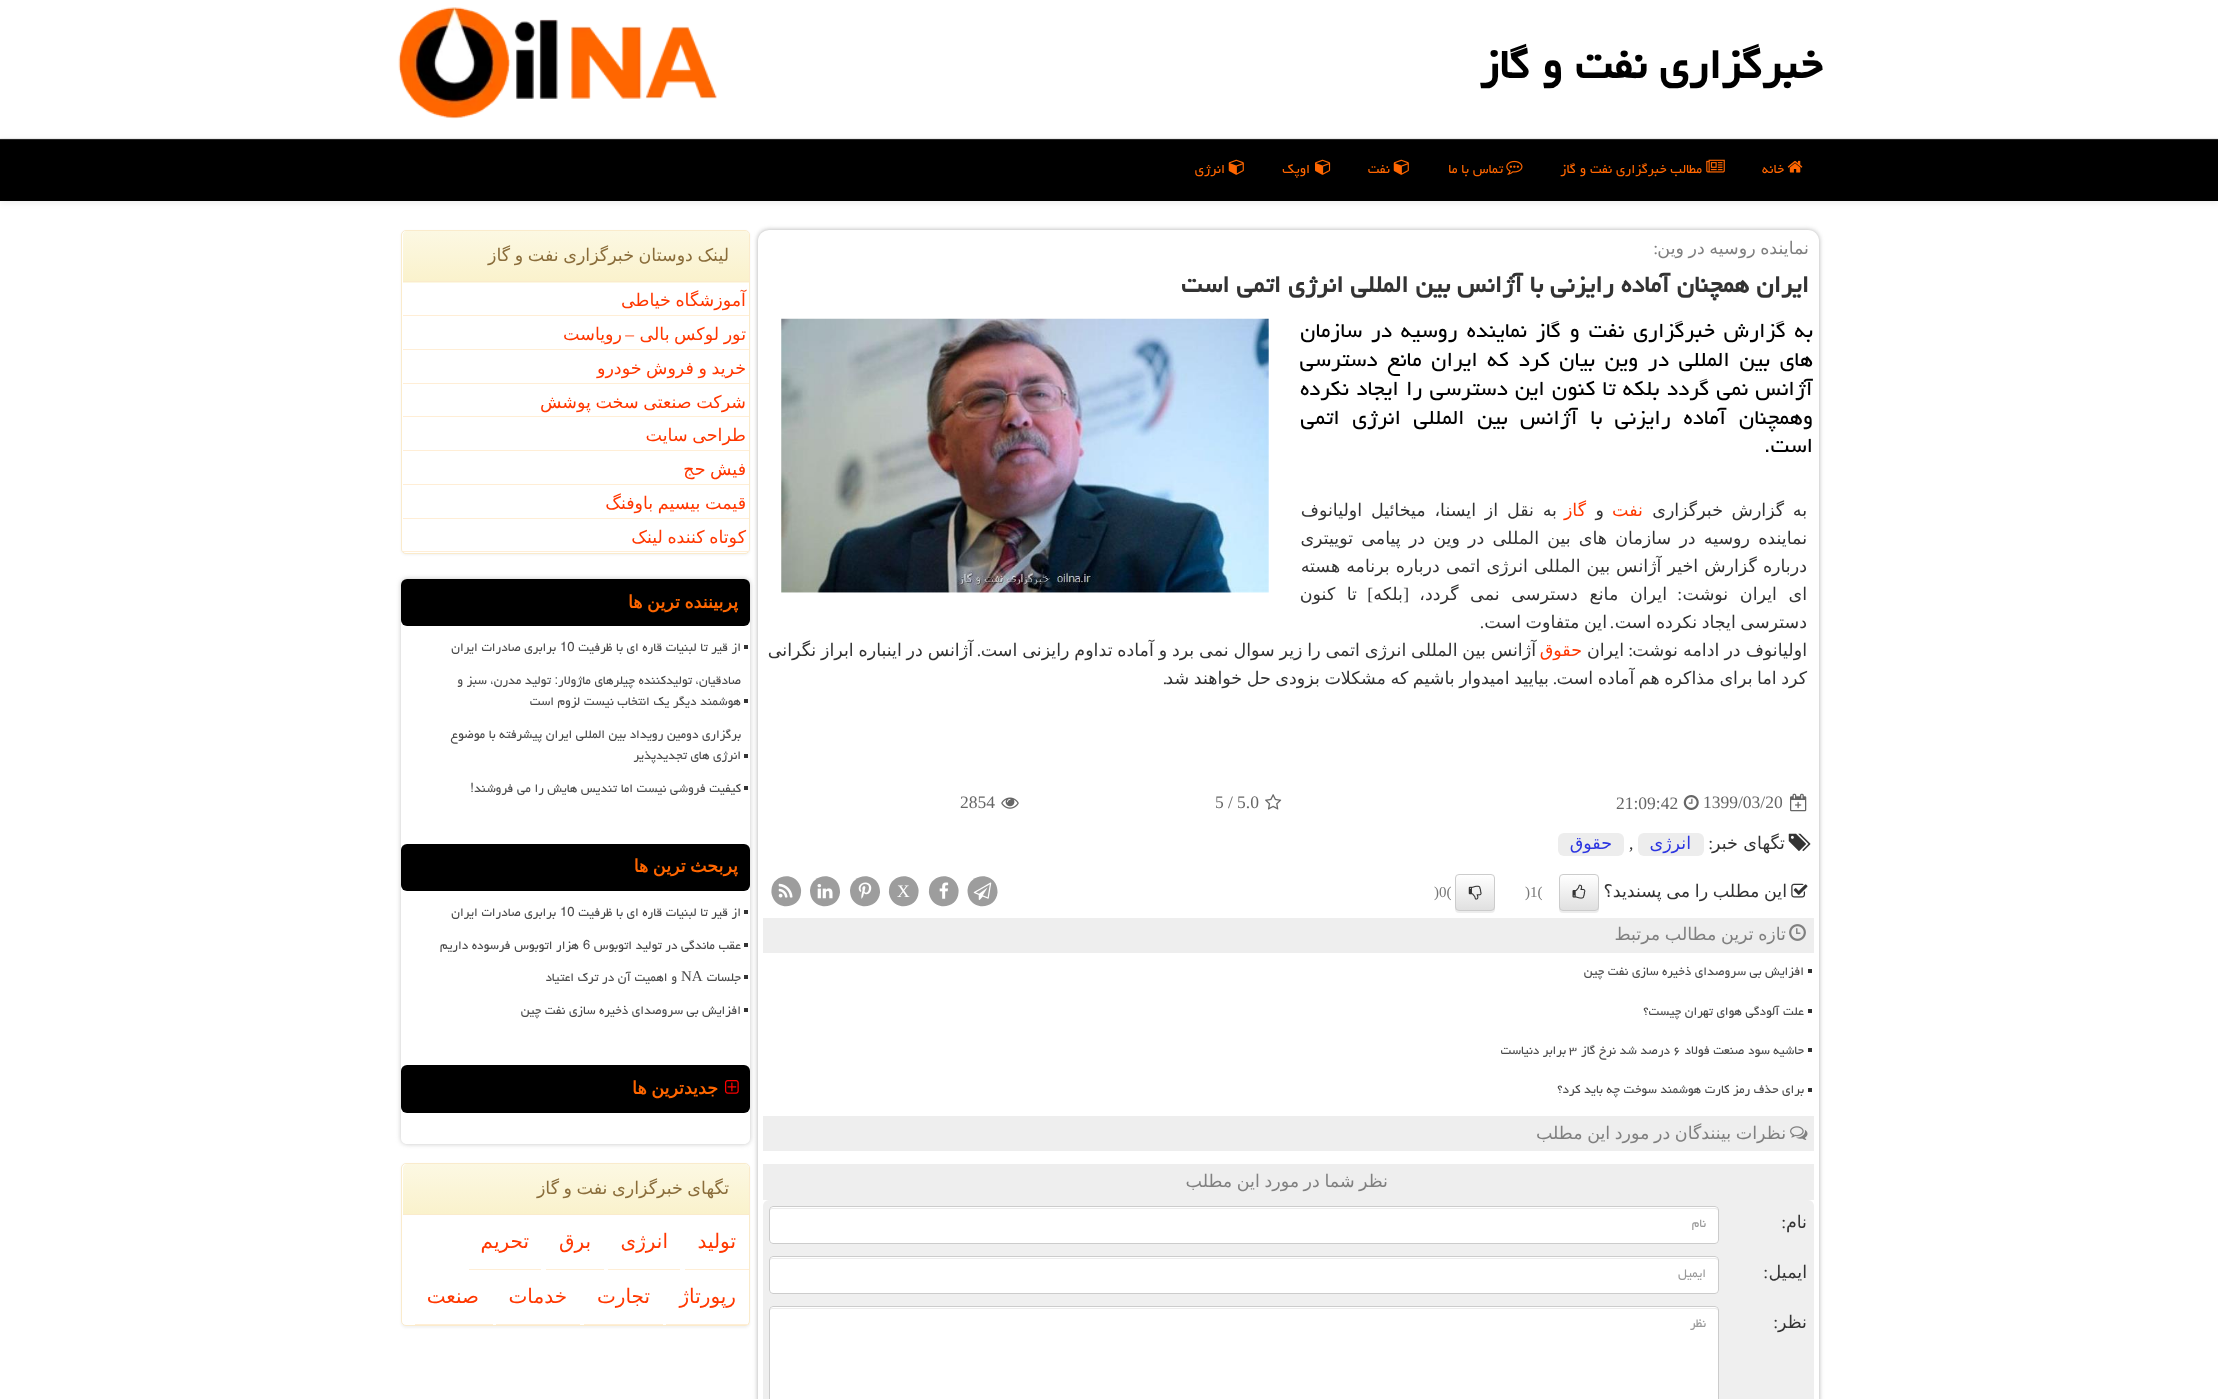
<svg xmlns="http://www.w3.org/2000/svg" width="2218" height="1399">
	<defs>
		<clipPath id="clip1"><rect x="1559" y="874" width="40" height="37" rx="4" /></clipPath>
		<linearGradient id="g1" gradientUnits="userSpaceOnUse" x1="1579" y1="875" x2="1579" y2="910"><stop offset="0" stop-color="#FFFFFF" /><stop offset="1" stop-color="#E0E0E0" /></linearGradient>
		<clipPath id="clip2"><rect x="1455" y="874" width="40" height="37" rx="4" /></clipPath>
		<linearGradient id="g2" gradientUnits="userSpaceOnUse" x1="1475" y1="875" x2="1475" y2="910"><stop offset="0" stop-color="#FFFFFF" /><stop offset="1" stop-color="#E0E0E0" /></linearGradient>
		<linearGradient id="g3" gradientUnits="userSpaceOnUse" x1="576" y1="231" x2="576" y2="281"><stop offset="0" stop-color="#FCF8E3" /><stop offset="1" stop-color="#FAF2CC" /></linearGradient>
		<clipPath id="clip3"><path d="M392 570H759V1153H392ZM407 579H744C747.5 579 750 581.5 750 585V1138C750 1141.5 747.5 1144 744 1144H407C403.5 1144 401 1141.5 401 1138V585C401 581.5 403.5 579 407 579Z" clip-rule="evenodd" /></clipPath>
		<linearGradient id="g4" gradientUnits="userSpaceOnUse" x1="576" y1="1164" x2="576" y2="1214"><stop offset="0" stop-color="#FCF8E3" /><stop offset="1" stop-color="#FAF2CC" /></linearGradient>
	</defs>
	<rect width="100%" height="100%" fill="#FFFFFF" />
	<rect x="0" y="138" width="2218" height="1" fill="#EEEEEE" />
	<text x="1822" y="78" font-family="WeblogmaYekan" font-size="52.5" font-weight="700" direction="rtl" fill="#000000">خبرگزاری نفت و گاز</text>
	<image x="398" y="7" width="319" height="112" href="assets/img1.png" />
	<rect x="0" y="140" width="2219" height="63" fill="#000000" fill-opacity="0.07" filter="blur(3px)" />
	<rect x="0" y="140" width="2218" height="61" fill="#000000" />
	<rect x="0" y="139" width="2218" height="1" fill="#262626" />
	<image x="1787" y="160" width="16" height="13" href="assets/img2.png" />
	<text x="1784" y="173" font-family="WeblogmaYekan" font-size="16.25" direction="rtl" fill="#FF6600">خانه</text>
	<image x="1706" y="159" width="19" height="14" href="assets/img3.png" />
	<text x="1702" y="173" font-family="WeblogmaYekan" font-size="16.25" direction="rtl" fill="#FF6600">مطالب خبرگزاری نفت و گاز</text>
	<image x="1506" y="160" width="17" height="15" href="assets/img4.png" />
	<text x="1503" y="173" font-family="WeblogmaYekan" font-size="16.25" direction="rtl" fill="#FF6600">تماس با ما</text>
	<image x="1393" y="159" width="16" height="16" href="assets/img5.png" />
	<text x="1390" y="173" font-family="WeblogmaYekan" font-size="16.25" direction="rtl" fill="#FF6600">نفت</text>
	<image x="1315" y="159" width="16" height="16" href="assets/img6.png" />
	<text x="1310" y="173" font-family="WeblogmaYekan" font-size="16.25" direction="rtl" fill="#FF6600">اوپک</text>
	<image x="1228" y="159" width="16" height="16" href="assets/img5.png" />
	<text x="1225" y="173" font-family="WeblogmaYekan" font-size="16.25" direction="rtl" fill="#FF6600">انرژی</text>
	<rect x="758" y="230" width="1061" height="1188" rx="11" fill="#ADADAD" filter="blur(2.5px)" />
	<rect x="758" y="230" width="1061" height="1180" rx="11" fill="#FFFFFF" />
	<text x="1809" y="254" word-spacing="-1" font-family="DejaVu Sans" font-size="17.5" direction="rtl" fill="#808080">نماینده روسیه در وین</text>
	<text x="1658" y="254" font-family="Liberation Serif" font-size="17.5" direction="rtl" fill="#808080">:</text>
	<text x="1809" y="292" font-family="WeblogmaYekan" font-size="29.75" font-weight="700" direction="rtl" fill="#333333">ایران همچنان آماده رایزنی با آژانس بین المللی انرژی اتمی است</text>
	<text x="1813" y="337" word-spacing="2.5" font-family="WeblogmaYekan" font-size="26.25" direction="rtl" fill="#000000">به گزارش خبرگزاری نفت و گاز نماینده روسیه در سازمان</text>
	<image x="781" y="318" width="488" height="275" href="assets/img7.png" />
	<g font-family="WeblogmaYekan" font-size="26.25" direction="rtl" fill="#000000">
		<text x="1813" y="366" word-spacing="3.4">های بین المللی در وین بیان كرد كه ایران مانع دسترسی</text>
		<text x="1813" y="395" word-spacing="1">آژانس نمی گردد بلكه تا كنون این دسترسی را ایجاد نكرده</text>
		<text x="1813" y="424" word-spacing="6.25">وهمچنان آماده رایزنی با آژانس بین المللی انرژی اتمی</text>
		<text x="1813" y="452">است.</text>
	</g>
	<text x="1807" y="516" word-spacing="3" font-family="DejaVu Sans" font-size="17.5" direction="rtl" fill="#333333">به گزارش خبرگزاری</text>
	<text x="1643" y="516" font-family="DejaVu Sans" font-size="17.5" direction="rtl" fill="#FF3700">نفت</text>
	<text x="1604" y="516" font-family="DejaVu Sans" font-size="17.5" direction="rtl" fill="#333333">و</text>
	<text x="1586" y="516" font-family="DejaVu Sans" font-size="17.5" direction="rtl" fill="#FF3700">گاز</text>
	<g font-family="DejaVu Sans" font-size="17.5" direction="rtl" fill="#333333">
		<text x="1557" y="516" word-spacing="3.25">به نقل از ایسنا، میخائیل اولیانوف</text>
		<text x="1807" y="544" word-spacing="2.6">نماینده روسیه در سازمان های بین المللی در وین در پیامی توییتری</text>
		<text x="1807" y="572" word-spacing="0.5">درباره گزارش اخیر آژانس بین المللی انرژی اتمی درباره برنامه هسته</text>
		<text x="1807" y="600" word-spacing="6">ای ایران نوشت</text>
	</g>
	<text x="1682" y="600" font-family="Liberation Serif" font-size="17.5" direction="rtl" fill="#333333">:</text>
	<text x="1667" y="600" word-spacing="6" font-family="DejaVu Sans" font-size="17.5" direction="rtl" fill="#333333">ایران مانع دسترسی نمی گردد،</text>
	<text x="1409" y="600" font-family="Liberation Serif" font-size="17.5" direction="rtl" fill="#333333">[</text>
	<text x="1403" y="600" font-family="DejaVu Sans" font-size="17.5" direction="rtl" fill="#333333">بلکه</text>
	<text x="1373" y="600" font-family="Liberation Serif" font-size="17.5" direction="rtl" fill="#333333">]</text>
	<g font-family="DejaVu Sans" font-size="17.5" direction="rtl" fill="#333333">
		<text x="1357" y="600" word-spacing="6">تا کنون</text>
		<text x="1807" y="628" word-spacing="-1">دسترسی ایجاد نکرده است</text>
	</g>
	<text x="1614" y="628" font-family="Liberation Serif" font-size="17.5" direction="rtl" fill="#333333">.</text>
	<text x="1607" y="628" word-spacing="-1" font-family="DejaVu Sans" font-size="17.5" direction="rtl" fill="#333333">این متفاوت است</text>
	<text x="1484" y="628" font-family="Liberation Serif" font-size="17.5" direction="rtl" fill="#333333">.</text>
	<text x="1807" y="656" word-spacing="-0.5" font-family="DejaVu Sans" font-size="17.5" direction="rtl" fill="#333333">اولیانوف در ادامه نوشت</text>
	<text x="1633" y="656" font-family="Liberation Serif" font-size="17.5" direction="rtl" fill="#333333">:</text>
	<text x="1624" y="656" font-family="DejaVu Sans" font-size="17.5" direction="rtl" fill="#333333">ایران</text>
	<text x="1582" y="656" font-family="DejaVu Sans" font-size="17.5" direction="rtl" fill="#FF3700">حقوق</text>
	<text x="1536" y="656" word-spacing="-0.75" font-family="DejaVu Sans" font-size="17.5" direction="rtl" fill="#333333">آژانس بین المللی انرژی اتمی را زیر سوال نمی برد و آماده تداوم رایزنی است</text>
	<text x="981" y="656" font-family="Liberation Serif" font-size="17.5" direction="rtl" fill="#333333">.</text>
	<g font-family="DejaVu Sans" font-size="17.5" direction="rtl" fill="#333333">
		<text x="973" y="656" word-spacing="-0.75">آژانس در اینباره ابراز نگرانی</text>
		<text x="1807" y="684" word-spacing="-1">کرد اما برای مذاکره هم آماده است</text>
	</g>
	<text x="1557" y="684" font-family="Liberation Serif" font-size="17.5" direction="rtl" fill="#333333">.</text>
	<text x="1549" y="684" word-spacing="-1" font-family="DejaVu Sans" font-size="17.5" direction="rtl" fill="#333333">بیایید امیدوار باشیم که مشکلات بزودی حل خواهند شد</text>
	<text x="1167" y="684" font-family="Liberation Serif" font-size="17.5" direction="rtl" fill="#333333">.</text>
	<image x="1790" y="793" width="17" height="19" href="assets/img8.png" />
	<text x="1703" y="808" font-family="Liberation Serif" font-size="17.5" fill="#666666">1399/03/20</text>
	<image x="1683" y="795" width="16" height="15" href="assets/img9.png" />
	<text x="1616" y="809" font-family="Liberation Serif" font-size="17.5" fill="#666666">21:09:42</text>
	<image x="1265" y="794" width="17" height="16" href="assets/img10.png" />
	<g font-family="Liberation Serif" font-size="17.5" fill="#666666">
		<text x="1237" y="808">5.0</text>
		<text x="1228" y="808">/</text>
		<text x="1215" y="808">5</text>
	</g>
	<image x="1001" y="797" width="18" height="12" href="assets/img11.png" />
	<text x="960" y="808" font-family="Liberation Serif" font-size="17.5" fill="#666666">2854</text>
	<image x="1788" y="833" width="23" height="19" href="assets/img12.png" />
	<text x="1785" y="849" font-family="DejaVu Sans" font-size="17.5" direction="rtl" fill="#333333">تگهای خبر</text>
	<text x="1713" y="849" font-family="Liberation Serif" font-size="17.5" direction="rtl" fill="#333333">:</text>
	<rect x="1638" y="833" width="66" height="23" rx="6" fill="#EDEDED" />
	<text x="1691" y="849" font-family="DejaVu Sans" font-size="17.5" direction="rtl" fill="#2B34E1">انرژی</text>
	<text x="1629" y="849" font-family="Liberation Serif" font-size="17.5" fill="#333333">,</text>
	<rect x="1558" y="833" width="66" height="23" rx="6" fill="#EDEDED" />
	<text x="1612" y="849" font-family="DejaVu Sans" font-size="17.5" direction="rtl" fill="#2B34E1">حقوق</text>
	<image x="1791" y="883" width="17" height="15" href="assets/img13.png" />
	<text x="1787" y="897" word-spacing="-1" font-family="DejaVu Sans" font-size="17.5" direction="rtl" fill="#333333">این مطلب را می پسندید؟</text>
	<rect x="1559" y="875" width="40" height="38" rx="4" fill="#000000" fill-opacity="0.07" filter="blur(0.5px)" />
	<g clip-path="url(#clip1)">
		<rect x="1559" y="875" width="40" height="35" fill="url(#g1)" />
	</g>
	<rect x="1559.5" y="874.5" width="39" height="36" rx="3.5" fill="none" stroke="#CCCCCC" />
	<image x="1572" y="884" width="14" height="15" href="assets/img14.png" />
	<text x="1525" y="897" font-family="Liberation Serif" font-size="15" fill="#777777">)1(</text>
	<rect x="1455" y="875" width="40" height="38" rx="4" fill="#000000" fill-opacity="0.07" filter="blur(0.5px)" />
	<g clip-path="url(#clip2)">
		<rect x="1455" y="875" width="40" height="35" fill="url(#g2)" />
	</g>
	<rect x="1455.5" y="874.5" width="39" height="36" rx="3.5" fill="none" stroke="#CCCCCC" />
	<image x="1468" y="885" width="14" height="15" href="assets/img15.png" />
	<text x="1434" y="897" font-family="Liberation Serif" font-size="15" fill="#777777">)0(</text>
	<path d="M995.5 883.5C997 886.5 997.5 889.5 997.5 892.5C996.5 907 977 911.5 969.5 899C968 896 967.5 893 967.5 890C968.5 875.5 988 871 995.5 883.5Z" fill="#9D9D9D" />
	<image x="973" y="882" width="19" height="18" href="assets/img16.png" />
	<path d="M956.5 883.5C958 886.5 959 889.5 958.5 892.5C958 907 938 911.5 931 899C929.5 896 928.5 893 929 890C929.5 875.5 949.5 871 956.5 883.5Z" fill="#9D9D9D" />
	<image x="939" y="882" width="10" height="17" href="assets/img17.png" />
	<path d="M916.5 883.5C918 886.5 919 889.5 918.5 892.5C918 907 898 911.5 891 899C889.5 896 888.5 893 889 890C889.5 875.5 909.5 871 916.5 883.5Z" fill="#9D9D9D" />
	<text x="897" y="897" font-family="Liberation Serif" font-size="17.5" fill="#FFFFFF">X</text>
	<path d="M878 883.5C879.5 886.5 880 889.5 880 892.5C879 907 859.5 911.5 852 899C850.5 896 850 893 850 890C851 875.5 870.5 871 878 883.5Z" fill="#9D9D9D" />
	<image x="858" y="882" width="14" height="17" href="assets/img18.png" />
	<path d="M838 883.5C839.5 886.5 840 889.5 840 892.5C839 907 819.5 911.5 812 899C810.5 896 810 893 810 890C811 875.5 830.5 871 838 883.5Z" fill="#9D9D9D" />
	<image x="817" y="884" width="16" height="15" href="assets/img19.png" />
	<path d="M799 883.5C800.5 886.5 801.5 889.5 801 892.5C800.5 907 780.5 911.5 773.5 899C772 896 771 893 771.5 890C772 875.5 792 871 799 883.5Z" fill="#9D9D9D" />
	<image x="778" y="883" width="15" height="15" href="assets/img20.png" />
	<rect x="763" y="918" width="1051" height="35" fill="#EEEEEE" />
	<image x="1789" y="924" width="17" height="17" href="assets/img21.png" />
	<text x="1786" y="940" word-spacing="-1" font-family="DejaVu Sans" font-size="17.5" direction="rtl" fill="#808080">تازه ترین مطالب مرتبط</text>
	<rect x="1808" y="969" width="4" height="4" fill="#333333" />
	<text x="1804" y="975" font-family="WeblogmaYekan" font-size="15" direction="rtl" fill="#4A4A4A">افزایش بی سروصدای ذخیره سازی نفت چین</text>
	<rect x="1808" y="1009" width="4" height="4" fill="#333333" />
	<text x="1804" y="1015" font-family="WeblogmaYekan" font-size="15" direction="rtl" fill="#4A4A4A">علت آلودگی هوای تهران چیست؟</text>
	<rect x="1808" y="1048" width="4" height="4" fill="#333333" />
	<text x="1804" y="1054" font-family="WeblogmaYekan" font-size="15" direction="rtl" fill="#4A4A4A">حاشیه سود صنعت فولاد</text>
	<text x="1673" y="1054" font-family="WeblogmaYekan" font-size="15" fill="#4A4A4A">۶</text>
	<text x="1670" y="1054" font-family="WeblogmaYekan" font-size="15" direction="rtl" fill="#4A4A4A">درصد شد نرخ گاز</text>
	<text x="1569" y="1054" font-family="WeblogmaYekan" font-size="15" fill="#4A4A4A">۳</text>
	<text x="1566" y="1054" font-family="WeblogmaYekan" font-size="15" direction="rtl" fill="#4A4A4A">برابر دنیاست</text>
	<rect x="1808" y="1088" width="4" height="4" fill="#333333" />
	<text x="1804" y="1093" font-family="WeblogmaYekan" font-size="15" direction="rtl" fill="#4A4A4A">برای حذف رمز کارت هوشمند سوخت چه باید کرد؟</text>
	<rect x="763" y="1116" width="1051" height="35" fill="#EEEEEE" />
	<image x="1790" y="1126" width="18" height="14" href="assets/img22.png" />
	<text x="1786" y="1139" word-spacing="-1" font-family="DejaVu Sans" font-size="17.5" direction="rtl" fill="#808080">نظرات بینندگان در مورد این مطلب</text>
	<rect x="763" y="1164" width="1051" height="36" fill="#EEEEEE" />
	<text x="1388" y="1187" word-spacing="-1" font-family="DejaVu Sans" font-size="17.5" direction="rtl" fill="#808080">نظر شما در مورد این مطلب</text>
	<rect x="763" y="1200" width="1051" height="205" rx="6" fill="#EFEFEF" />
	<text x="1807" y="1228" font-family="DejaVu Sans" font-size="17.5" direction="rtl" fill="#333333">نام</text>
	<text x="1786" y="1228" font-family="Liberation Serif" font-size="17.5" direction="rtl" fill="#333333">:</text>
	<rect x="769" y="1206" width="950" height="38" rx="4" fill="#FFFFFF" />
	<path d="M772 1209H1715C1716 1209 1718 1210 1718 1211V1210C1718 1209 1717 1208 1716 1208H772C771 1208 770 1209 770 1210V1211C770 1210 771 1209 772 1209Z" fill="#ECECEC" />
	<rect x="769.5" y="1206.5" width="949" height="37" rx="3.5" fill="none" stroke="#CCCCCC" />
	<text x="1706" y="1227" font-family="WeblogmaYekan" font-size="15" direction="rtl" fill="#999999">نام</text>
	<text x="1807" y="1278" font-family="DejaVu Sans" font-size="17.5" direction="rtl" fill="#333333">ایمیل</text>
	<text x="1768" y="1278" font-family="Liberation Serif" font-size="17.5" direction="rtl" fill="#333333">:</text>
	<rect x="769" y="1256" width="950" height="38" rx="4" fill="#FFFFFF" />
	<path d="M772 1259H1715C1716 1259 1718 1260 1718 1261V1260C1718 1259 1717 1258 1716 1258H772C771 1258 770 1259 770 1260V1261C770 1260 771 1259 772 1259Z" fill="#ECECEC" />
	<rect x="769.5" y="1256.5" width="949" height="37" rx="3.5" fill="none" stroke="#CCCCCC" />
	<text x="1706" y="1277" font-family="WeblogmaYekan" font-size="15" direction="rtl" fill="#999999">ایمیل</text>
	<text x="1807" y="1328" font-family="DejaVu Sans" font-size="17.5" direction="rtl" fill="#333333">نظر</text>
	<text x="1778" y="1328" font-family="Liberation Serif" font-size="17.5" direction="rtl" fill="#333333">:</text>
	<rect x="769" y="1306" width="950" height="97" rx="4" fill="#FFFFFF" />
	<path d="M772 1309H1715C1716 1309 1718 1310 1718 1311V1310C1718 1309 1717 1308 1716 1308H772C771 1308 770 1309 770 1310V1311C770 1310 771 1309 772 1309Z" fill="#ECECEC" />
	<rect x="769.5" y="1306.5" width="949" height="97" rx="3.5" fill="none" stroke="#CCCCCC" />
	<text x="1706" y="1327" font-family="WeblogmaYekan" font-size="15" direction="rtl" fill="#999999">نظر</text>
	<rect x="401" y="231" width="349" height="324" rx="5" fill="#000000" fill-opacity="0.05" filter="blur(1px)" />
	<rect x="401.5" y="230.5" width="348" height="323" rx="4.5" fill="#FFFFFF" stroke="#FAEBCC" />
	<path d="M407 231H745C747 231 749 233 749 235V283H403V235C403 233 405 231 407 231Z" fill="#FCF8E3" />
	<path d="M407 231H745C747 231 749 233 749 235V281H403V235C403 233 405 231 407 231Z" fill="url(#g3)" />
	<rect x="403" y="281" width="346" height="1" fill="#FAEBCC" />
	<text x="729" y="261" word-spacing="-1" font-family="DejaVu Sans" font-size="17.5" direction="rtl" fill="#8A6D3B">لینک دوستان خبرگزاری نفت و گاز</text>
	<rect x="403" y="315" width="346" height="1" fill="#FFEED6" />
	<text x="746" y="306" word-spacing="-1" font-family="DejaVu Sans" font-size="17.5" direction="rtl" fill="#FF3700">آموزشگاه خیاطی</text>
	<rect x="403" y="349" width="346" height="1" fill="#FFEED6" />
	<text x="746" y="340" word-spacing="-1" font-family="DejaVu Sans" font-size="17.5" direction="rtl" fill="#FF3700">تور لوکس بالی</text>
	<text x="634" y="340" font-family="Liberation Serif" font-size="17.5" direction="rtl" fill="#FF3700">–</text>
	<text x="622" y="340" font-family="DejaVu Sans" font-size="17.5" direction="rtl" fill="#FF3700">رویاست</text>
	<rect x="403" y="383" width="346" height="1" fill="#FFEED6" />
	<text x="746" y="374" word-spacing="-1" font-family="DejaVu Sans" font-size="17.5" direction="rtl" fill="#FF3700">خرید و فروش خودرو</text>
	<rect x="403" y="416" width="346" height="1" fill="#FFEED6" />
	<text x="746" y="408" word-spacing="-1" font-family="DejaVu Sans" font-size="17.5" direction="rtl" fill="#FF3700">شرکت صنعتی سخت پوشش</text>
	<rect x="403" y="450" width="346" height="1" fill="#FFEED6" />
	<text x="746" y="441" word-spacing="-1" font-family="DejaVu Sans" font-size="17.5" direction="rtl" fill="#FF3700">طراحی سایت</text>
	<rect x="403" y="484" width="346" height="1" fill="#FFEED6" />
	<text x="746" y="475" word-spacing="-1" font-family="DejaVu Sans" font-size="17.5" direction="rtl" fill="#FF3700">فیش حج</text>
	<rect x="403" y="518" width="346" height="1" fill="#FFEED6" />
	<text x="746" y="509" word-spacing="-1" font-family="DejaVu Sans" font-size="17.5" direction="rtl" fill="#FF3700">قیمت بیسیم باوفنگ</text>
	<rect x="403" y="551" width="346" height="1" fill="#FFEED6" />
	<text x="746" y="543" word-spacing="-1" font-family="DejaVu Sans" font-size="17.5" direction="rtl" fill="#FF3700">کوتاه کننده لینک</text>
	<g clip-path="url(#clip3)">
		<rect x="401" y="579" width="349" height="565" rx="6" fill="#C3C3C3" filter="blur(2.5px)" />
	</g>
	<rect x="401" y="579" width="349" height="47" rx="6" fill="#000000" />
	<text x="738" y="608" word-spacing="-1" font-family="DejaVu Sans" font-size="17.5" font-weight="700" direction="rtl" fill="#FF6600">پربیننده ترین ها</text>
	<rect x="744" y="645" width="4" height="4" fill="#333333" />
	<text x="741" y="651" font-family="WeblogmaYekan" font-size="15" direction="rtl" fill="#4A4A4A">از قیر تا لبنیات قاره ای با ظرفیت</text>
	<text x="560" y="651" font-family="WeblogmaYekan" font-size="15" fill="#4A4A4A">10</text>
	<text x="556" y="651" font-family="WeblogmaYekan" font-size="15" direction="rtl" fill="#4A4A4A">برابری صادرات ایران</text>
	<rect x="744" y="699" width="4" height="4" fill="#333333" />
	<g font-family="WeblogmaYekan" font-size="15" direction="rtl" fill="#4A4A4A">
		<text x="741" y="684">صادقیان، تولیدکننده چیلرهای ماژولار: تولید مدرن، سبز و</text>
		<text x="741" y="705">هوشمند دیگر یک انتخاب نیست لزوم است</text>
	</g>
	<rect x="744" y="754" width="4" height="4" fill="#333333" />
	<g font-family="WeblogmaYekan" font-size="15" direction="rtl" fill="#4A4A4A">
		<text x="741" y="738">برگزاری دومین رویداد بین المللی ایران پیشرفته با موضوع</text>
		<text x="741" y="759">انرژی های تجدیدپذیر</text>
	</g>
	<rect x="744" y="786" width="4" height="4" fill="#333333" />
	<text x="741" y="792" font-family="WeblogmaYekan" font-size="15" direction="rtl" fill="#4A4A4A">کیفیت فروشی نیست اما تندیس هایش را می فروشند!</text>
	<rect x="401" y="844" width="349" height="47" rx="6" fill="#000000" />
	<text x="738" y="872" word-spacing="-1" font-family="DejaVu Sans" font-size="17.5" font-weight="700" direction="rtl" fill="#FF6600">پربحث ترین ها</text>
	<rect x="744" y="910" width="4" height="4" fill="#333333" />
	<text x="741" y="916" font-family="WeblogmaYekan" font-size="15" direction="rtl" fill="#4A4A4A">از قیر تا لبنیات قاره ای با ظرفیت</text>
	<text x="560" y="916" font-family="WeblogmaYekan" font-size="15" fill="#4A4A4A">10</text>
	<text x="556" y="916" font-family="WeblogmaYekan" font-size="15" direction="rtl" fill="#4A4A4A">برابری صادرات ایران</text>
	<rect x="744" y="943" width="4" height="4" fill="#333333" />
	<text x="741" y="949" font-family="WeblogmaYekan" font-size="15" direction="rtl" fill="#4A4A4A">عقب ماندگی در تولید اتوبوس</text>
	<text x="583" y="949" font-family="WeblogmaYekan" font-size="15" fill="#4A4A4A">6</text>
	<text x="579" y="949" font-family="WeblogmaYekan" font-size="15" direction="rtl" fill="#4A4A4A">هزار اتوبوس فرسوده داریم</text>
	<rect x="744" y="975" width="4" height="4" fill="#333333" />
	<text x="741" y="981" font-family="WeblogmaYekan" font-size="15" direction="rtl" fill="#4A4A4A">جلسات</text>
	<text x="681" y="981" font-family="Liberation Serif" font-size="15" fill="#4A4A4A">NA</text>
	<text x="677" y="981" font-family="WeblogmaYekan" font-size="15" direction="rtl" fill="#4A4A4A">و اهمیت آن در ترک اعتیاد</text>
	<rect x="744" y="1008" width="4" height="4" fill="#333333" />
	<text x="741" y="1014" font-family="WeblogmaYekan" font-size="15" direction="rtl" fill="#4A4A4A">افزایش بی سروصدای ذخیره سازی نفت چین</text>
	<rect x="401" y="1065" width="349" height="48" rx="6" fill="#000000" />
	<image x="725" y="1080" width="14" height="14" href="assets/img23.png" />
	<text x="718" y="1094" word-spacing="-1" font-family="DejaVu Sans" font-size="17.5" font-weight="700" direction="rtl" fill="#FF6600">جدیدترین ها</text>
	<rect x="401" y="1164" width="349" height="164" rx="5" fill="#000000" fill-opacity="0.05" filter="blur(1px)" />
	<rect x="401.5" y="1163.5" width="348" height="162" rx="4.5" fill="#FFFFFF" stroke="#FAEBCC" />
	<path d="M407 1164H745C747 1164 749 1166 749 1168V1214H403V1168C403 1166 405 1164 407 1164Z" fill="url(#g4)" />
	<rect x="403" y="1214" width="346" height="1" fill="#FAEBCC" />
	<text x="729" y="1194" word-spacing="-1" font-family="DejaVu Sans" font-size="17.5" direction="rtl" fill="#8A6D3B">تگهای خبرگزاری نفت و گاز</text>
	<rect x="685" y="1269" width="64" height="1" fill="#FFEED6" />
	<text x="736" y="1248" font-family="DejaVu Sans" font-size="20" direction="rtl" fill="#FF3700">تولید</text>
	<rect x="608" y="1269" width="72" height="1" fill="#FFEED6" />
	<text x="668" y="1248" font-family="DejaVu Sans" font-size="20" direction="rtl" fill="#FF3700">انرژی</text>
	<rect x="546" y="1269" width="58" height="1" fill="#FFEED6" />
	<text x="591" y="1248" font-family="DejaVu Sans" font-size="20" direction="rtl" fill="#FF3700">برق</text>
	<rect x="469" y="1269" width="72" height="1" fill="#FFEED6" />
	<text x="529" y="1248" font-family="DejaVu Sans" font-size="20" direction="rtl" fill="#FF3700">تحریم</text>
	<rect x="666" y="1324" width="83" height="1" fill="#FFEED6" />
	<text x="736" y="1303" font-family="DejaVu Sans" font-size="20" direction="rtl" fill="#FF3700">رپورتاژ</text>
	<rect x="584" y="1324" width="79" height="1" fill="#FFEED6" />
	<text x="650" y="1303" font-family="DejaVu Sans" font-size="20" direction="rtl" fill="#FF3700">تجارت</text>
	<rect x="496" y="1324" width="84" height="1" fill="#FFEED6" />
	<text x="567" y="1303" font-family="DejaVu Sans" font-size="20" direction="rtl" fill="#FF3700">خدمات</text>
	<rect x="415" y="1324" width="78" height="1" fill="#FFEED6" />
	<text x="479" y="1303" font-family="DejaVu Sans" font-size="20" direction="rtl" fill="#FF3700">صنعت</text>
</svg>
